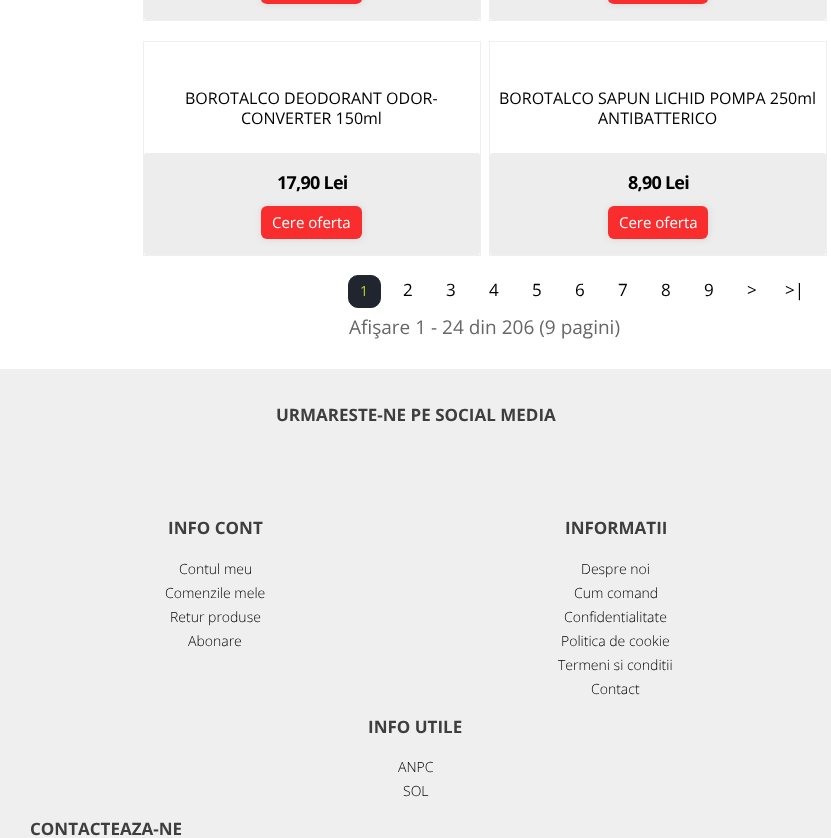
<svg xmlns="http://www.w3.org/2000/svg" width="831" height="838">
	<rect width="100%" height="100%" fill="#FFFFFF" />
	<rect x="143.5" y="-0.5" width="337" height="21" fill="none" stroke="#EFEFEF" />
	<rect x="144" y="-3" width="336" height="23" rx="3" fill="#EDEDED" />
	<rect x="261" y="-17" width="102" height="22" rx="6" fill="#000000" fill-opacity="0.08" filter="blur(3.5px)" />
	<rect x="261" y="-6" width="101" height="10" rx="6" fill="#F92D2D" />
	<rect x="489.5" y="-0.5" width="337" height="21" fill="none" stroke="#EFEFEF" />
	<rect x="490" y="-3" width="336" height="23" rx="3" fill="#EDEDED" />
	<rect x="608" y="-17" width="101" height="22" rx="6" fill="#000000" fill-opacity="0.08" filter="blur(3.5px)" />
	<rect x="608" y="-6" width="100" height="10" rx="6" fill="#F92D2D" />
	<rect x="143.5" y="41.5" width="337" height="214" fill="none" stroke="#EFEFEF" />
	<g font-family="Open Sans" font-size="16" fill="#000000">
		<text x="185" y="104">BOROTALCO DEODORANT ODOR-</text>
		<text x="241" y="124">CONVERTER 150ml</text>
	</g>
	<rect x="144" y="153" width="336" height="102" rx="3" fill="#EDEDED" />
	<text x="277" y="189" font-family="Open Sans" font-size="18" font-weight="700" letter-spacing="-0.75" fill="#000000">17,90 Lei</text>
	<rect x="261" y="206" width="102" height="34" rx="6" fill="#000000" fill-opacity="0.08" filter="blur(3.5px)" />
	<rect x="261" y="206" width="101" height="33" rx="6" fill="#F92D2D" />
	<text x="272" y="228" font-family="Open Sans" font-size="15" fill="#FFFFFF">Cere oferta</text>
	<rect x="489.5" y="41.5" width="337" height="214" fill="none" stroke="#EFEFEF" />
	<g font-family="Open Sans" font-size="16" fill="#000000">
		<text x="499" y="104">BOROTALCO SAPUN LICHID POMPA 250ml</text>
		<text x="598" y="124">ANTIBATTERICO</text>
	</g>
	<rect x="490" y="153" width="336" height="102" rx="3" fill="#EDEDED" />
	<text x="628" y="189" font-family="Open Sans" font-size="18" font-weight="700" letter-spacing="-0.75" fill="#000000">8,90 Lei</text>
	<rect x="608" y="206" width="101" height="34" rx="6" fill="#000000" fill-opacity="0.08" filter="blur(3.5px)" />
	<rect x="608" y="206" width="100" height="33" rx="6" fill="#F92D2D" />
	<text x="619" y="228" font-family="Open Sans" font-size="15" fill="#FFFFFF">Cere oferta</text>
	<rect x="348.5" y="275.5" width="32" height="32" rx="9.5" fill="#212530" stroke="#212530" />
	<text x="360" y="296" font-family="Open Sans" font-size="14" fill="#B1D627">1</text>
	<g font-family="Open Sans" font-size="17" fill="#000000">
		<text x="403" y="296">2</text>
		<text x="446" y="296">3</text>
		<text x="489" y="296">4</text>
		<text x="532" y="296">5</text>
		<text x="575" y="296">6</text>
		<text x="618" y="296">7</text>
		<text x="661" y="296">8</text>
		<text x="704" y="296">9</text>
		<text x="747" y="296">&gt;</text>
		<text x="785" y="296">&gt;|</text>
	</g>
	<text x="349" y="334" font-family="Open Sans" font-size="19" fill="#666666">Afişare 1 - 24 din 206 (9 pagini)</text>
	<rect x="0" y="369" width="831" height="469" fill="#EFEFEF" />
	<g font-family="Open Sans" font-size="17" font-weight="700" fill="#3E3E3E">
		<text x="276" y="421">URMARESTE-NE PE SOCIAL MEDIA</text>
		<text x="168" y="534">INFO CONT</text>
	</g>
	<g font-family="Open Sans" font-size="14" font-weight="300" fill="#000000">
		<text x="179" y="574">Contul meu</text>
		<text x="165" y="598">Comenzile mele</text>
		<text x="170" y="622">Retur produse</text>
		<text x="188" y="646">Abonare</text>
	</g>
	<text x="565" y="534" font-family="Open Sans" font-size="17" font-weight="700" fill="#3E3E3E">INFORMATII</text>
	<g font-family="Open Sans" font-size="14" font-weight="300" fill="#000000">
		<text x="581" y="574">Despre noi</text>
		<text x="574" y="598">Cum comand</text>
		<text x="564" y="622">Confidentialitate</text>
		<text x="561" y="646">Politica de cookie</text>
		<text x="558" y="670">Termeni si conditii</text>
		<text x="591" y="694">Contact</text>
	</g>
	<text x="368" y="733" font-family="Open Sans" font-size="17" font-weight="700" fill="#3E3E3E">INFO UTILE</text>
	<g font-family="Open Sans" font-size="14" font-weight="300" fill="#000000">
		<text x="398" y="772">ANPC</text>
		<text x="403" y="796">SOL</text>
	</g>
	<text x="30" y="835" font-family="Open Sans" font-size="17" font-weight="700" fill="#3E3E3E">CONTACTEAZA-NE</text>
</svg>
